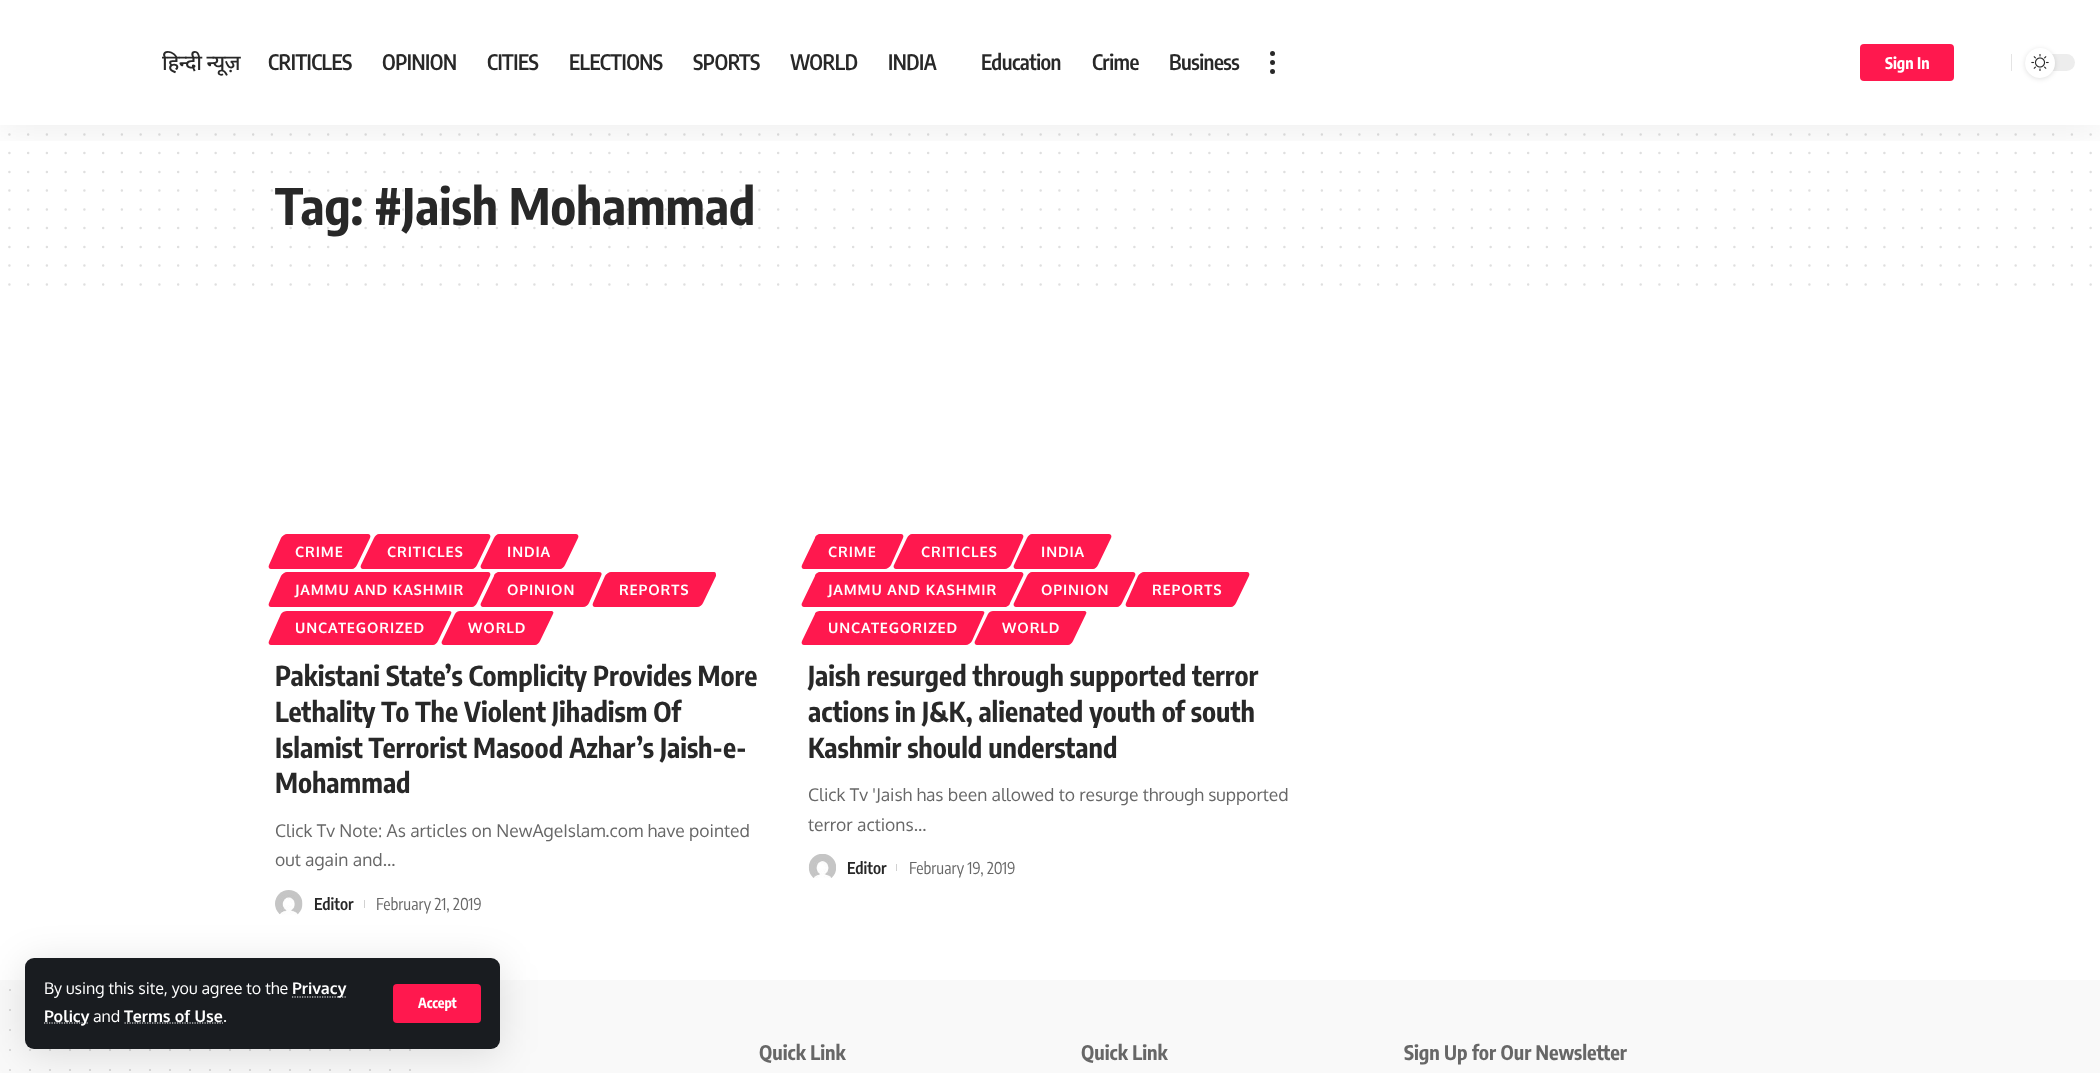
<svg xmlns="http://www.w3.org/2000/svg" width="2100" height="1073">
	<defs>
		<clipPath id="clip1"><rect x="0" y="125" width="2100" height="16" /></clipPath>
	</defs>
	<rect width="100%" height="100%" fill="#FFFFFF" />
	<path d="M9.4 134.4H2090.9" fill="none" stroke="#DFDFDF" stroke-width="2.5" stroke-linecap="round" stroke-dasharray="0 18.75" />
	<path d="M9.4 153.1H2090.9" fill="none" stroke="#DFDFDF" stroke-width="2.5" stroke-linecap="round" stroke-dasharray="0 18.75" />
	<path d="M9.4 171.9H2090.9" fill="none" stroke="#DFDFDF" stroke-width="2.5" stroke-linecap="round" stroke-dasharray="0 18.75" />
	<g clip-path="url(#clip1)">
		<rect x="0" y="5" width="2100" height="125" fill="#000000" fill-opacity="0.07" filter="blur(19px)" />
	</g>
	<text x="162" y="70" font-family="Noto Sans" font-size="21.25" font-weight="500" letter-spacing="-0.5" fill="#282828">हिन्दी न्यूज़</text>
	<g font-family="Encode Sans Condensed" font-size="21.25" font-weight="600" letter-spacing="-0.5" fill="#282828">
		<text x="268" y="70">CRITICLES</text>
		<text x="382" y="70">OPINION</text>
		<text x="487" y="70">CITIES</text>
		<text x="569" y="70">ELECTIONS</text>
		<text x="693" y="70">SPORTS</text>
		<text x="790" y="70">WORLD</text>
		<text x="888" y="70">INDIA</text>
		<text x="981" y="70">Education</text>
		<text x="1092" y="70">Crime</text>
		<text x="1169" y="70">Business</text>
	</g>
	<circle cx="1272.5" cy="53.5" r="2.5" fill="#282828" />
	<circle cx="1272.5" cy="62.5" r="2.5" fill="#282828" />
	<circle cx="1272.5" cy="71.5" r="2.5" fill="#282828" />
	<rect x="1860" y="44" width="94" height="37" rx="4" fill="#FF184E" />
	<text x="1885" y="69" font-family="Encode Sans Condensed" font-size="16" font-weight="700" fill="#FFFFFF">Sign In</text>
	<rect x="2011" y="54" width="1" height="17" fill="#E4E4E4" />
	<rect x="2025" y="54" width="50" height="17" rx="8.5" fill="#EDEDED" />
	<rect x="2025" y="49" width="30" height="30" rx="15" fill="#000000" fill-opacity="0.12" filter="blur(2.5px)" />
	<circle cx="2040" cy="63" r="15" fill="#FFFFFF" />
	<image x="2031" y="54" width="18" height="17" href="assets/img1.png" />
	<image x="275" y="890" width="28" height="25" href="assets/img2.png" />
	<rect x="364" y="900" width="1" height="8" fill="#D1D1D1" />
	<rect x="0" y="980" width="2100" height="93" fill="#F9F9F9" />
	<path d="M10 990H410.2" fill="none" stroke="#CFCFCF" stroke-width="1.9" stroke-linecap="round" stroke-dasharray="0 20" />
	<path d="M10 1010H410.2" fill="none" stroke="#CFCFCF" stroke-width="1.9" stroke-linecap="round" stroke-dasharray="0 20" />
	<path d="M10 1030H410.2" fill="none" stroke="#CFCFCF" stroke-width="1.9" stroke-linecap="round" stroke-dasharray="0 20" />
	<path d="M10 1050H410.2" fill="none" stroke="#CFCFCF" stroke-width="1.9" stroke-linecap="round" stroke-dasharray="0 20" />
	<path d="M10 1070H410.2" fill="none" stroke="#CFCFCF" stroke-width="1.9" stroke-linecap="round" stroke-dasharray="0 20" />
	<rect x="25" y="963" width="475" height="91" rx="9" fill="#000000" fill-opacity="0.12" filter="blur(19px)" />
	<rect x="25" y="958" width="475" height="91" rx="9" fill="#191C20" />
	<text x="44" y="994" font-family="Oxygen" font-size="16" fill="#FFFFFF">By using this site, you agree to the</text>
	<path d="M292 997H346" fill="none" stroke="#FFFFFF" stroke-width="1.2" stroke-dasharray="1.25 1.25" />
	<text x="292" y="994" font-family="Oxygen" font-size="16" font-weight="700" fill="#FFFFFF">Privacy</text>
	<path d="M44 1023H89" fill="none" stroke="#FFFFFF" stroke-width="1.2" stroke-dasharray="1.25 1.25" />
	<text x="44" y="1022" font-family="Oxygen" font-size="16" font-weight="700" fill="#FFFFFF">Policy</text>
	<text x="93" y="1022" font-family="Oxygen" font-size="16" fill="#FFFFFF">and</text>
	<path d="M124.5 1023H223" fill="none" stroke="#FFFFFF" stroke-width="1.2" stroke-dasharray="1.25 1.25" />
	<text x="124" y="1022" font-family="Oxygen" font-size="16" font-weight="700" fill="#FFFFFF">Terms of Use</text>
	<text x="223" y="1022" font-family="Oxygen" font-size="16" fill="#FFFFFF">.</text>
	<rect x="393" y="984" width="88" height="39" rx="4" fill="#FF184E" />
	<text x="418" y="1008" font-family="Encode Sans Condensed" font-size="14" font-weight="700" fill="#FFFFFF">Accept</text>
	<text x="275" y="225" font-family="Encode Sans Condensed" font-size="50" font-weight="700" fill="#282828">Tag: #Jaish Mohammad</text>
	<path d="M9.4 190.6H2090.9" fill="none" stroke="#282828" stroke-opacity="0.15" stroke-width="2.5" stroke-linecap="round" stroke-dasharray="0 18.75" />
	<path d="M9.4 209.4H2090.9" fill="none" stroke="#282828" stroke-opacity="0.15" stroke-width="2.5" stroke-linecap="round" stroke-dasharray="0 18.75" />
	<path d="M9.4 228.1H2090.9" fill="none" stroke="#282828" stroke-opacity="0.15" stroke-width="2.5" stroke-linecap="round" stroke-dasharray="0 18.75" />
	<path d="M9.4 246.9H2090.9" fill="none" stroke="#DFDFDF" stroke-width="2.5" stroke-linecap="round" stroke-dasharray="0 18.75" />
	<path d="M9.4 265.6H2090.9" fill="none" stroke="#DFDFDF" stroke-width="2.5" stroke-linecap="round" stroke-dasharray="0 18.75" />
	<path d="M9.4 284.4H2090.9" fill="none" stroke="#DFDFDF" stroke-width="2.5" stroke-linecap="round" stroke-dasharray="0 18.75" />
	<path d="M287 534H368C370 534 371 536 370 538L357 565C356 567 354 569 352 569H271C269 569 268 567 269 565L281 538C282 536 285 534 287 534Z" fill="#FF184E" />
	<text x="295" y="557" font-family="Oxygen" font-size="14.4" font-weight="700" letter-spacing="0.9" fill="#FFFFFF">CRIME</text>
	<path d="M379 534H488C490 534 491 536 490 538L477 565C476 567 474 569 472 569H363C361 569 360 567 361 565L374 538C375 536 377 534 379 534Z" fill="#FF184E" />
	<text x="387" y="557" font-family="Oxygen" font-size="14.4" font-weight="700" letter-spacing="0.9" fill="#FFFFFF">CRITICLES</text>
	<path d="M499 534H576C578 534 579 536 578 538L565 565C564 567 562 569 560 569H483C481 569 480 567 481 565L494 538C495 536 497 534 499 534Z" fill="#FF184E" />
	<text x="507" y="557" font-family="Oxygen" font-size="14.4" font-weight="700" letter-spacing="0.9" fill="#FFFFFF">INDIA</text>
	<path d="M287 572H488C490 572 491 574 490 576L477 603C476 605 474 607 472 607H271C269 607 268 605 269 603L281 576C282 574 285 572 287 572Z" fill="#FF184E" />
	<text x="295" y="595" font-family="Oxygen" font-size="14.4" font-weight="700" letter-spacing="0.9" fill="#FFFFFF">JAMMU AND KASHMIR</text>
	<path d="M499 572H599C602 572 602 574 601 576L589 603C588 605 586 607 583 607H483C481 607 480 605 481 603L494 576C494 574 497 572 499 572Z" fill="#FF184E" />
	<text x="507" y="595" font-family="Oxygen" font-size="14.4" font-weight="700" letter-spacing="0.9" fill="#FFFFFF">OPINION</text>
	<path d="M611 572H714C716 572 716 574 716 576L703 603C702 605 700 607 697 607H595C593 607 592 605 593 603L605 576C606 574 609 572 611 572Z" fill="#FF184E" />
	<text x="619" y="595" font-family="Oxygen" font-size="14.4" font-weight="700" letter-spacing="0.9" fill="#FFFFFF">REPORTS</text>
	<path d="M287 611H449C451 611 452 612 451 614L438 641C437 643 435 645 433 645H271C269 645 268 643 269 641L281 614C282 612 285 611 287 611Z" fill="#FF184E" />
	<text x="295" y="633" font-family="Oxygen" font-size="14.4" font-weight="700" letter-spacing="0.9" fill="#FFFFFF">UNCATEGORIZED</text>
	<path d="M460 611H551C553 611 554 612 553 614L540 641C539 643 537 645 535 645H444C442 645 441 643 442 641L455 614C456 612 458 611 460 611Z" fill="#FF184E" />
	<text x="468" y="633" font-family="Oxygen" font-size="14.4" font-weight="700" letter-spacing="0.9" fill="#FFFFFF">WORLD</text>
	<g font-family="Encode Sans Condensed" font-size="27.5" font-weight="700" fill="#282828">
		<text x="275" y="686">Pakistani State’s Complicity Provides More</text>
		<text x="275" y="722">Lethality To The Violent Jihadism Of</text>
		<text x="275" y="758">Islamist Terrorist Masood Azhar’s Jaish-e-</text>
		<text x="275" y="793">Mohammad</text>
	</g>
	<g font-family="Oxygen" font-size="17.5" fill="#676767">
		<text x="275" y="837">Click Tv Note: As articles on NewAgeIslam.com have pointed</text>
		<text x="275" y="866">out again and…</text>
	</g>
	<text x="314" y="910" font-family="Encode Sans Condensed" font-size="16.25" font-weight="600" fill="#282828">Editor</text>
	<text x="376" y="910" font-family="Encode Sans Condensed" font-size="16.25" fill="#676767">February 21, 2019</text>
	<path d="M820 534H901C903 534 904 536 903 538L891 565C890 567 887 569 885 569H804C802 569 801 567 802 565L815 538C815 536 818 534 820 534Z" fill="#FF184E" />
	<text x="828" y="557" font-family="Oxygen" font-size="14.4" font-weight="700" letter-spacing="0.9" fill="#FFFFFF">CRIME</text>
	<path d="M912 534H1021C1023 534 1024 536 1023 538L1011 565C1010 567 1007 569 1005 569H896C894 569 893 567 894 565L907 538C908 536 910 534 912 534Z" fill="#FF184E" />
	<text x="921" y="557" font-family="Oxygen" font-size="14.4" font-weight="700" letter-spacing="0.9" fill="#FFFFFF">CRITICLES</text>
	<path d="M1032 534H1109C1111 534 1112 536 1111 538L1098 565C1097 567 1095 569 1093 569H1016C1014 569 1013 567 1014 565L1027 538C1028 536 1030 534 1032 534Z" fill="#FF184E" />
	<text x="1041" y="557" font-family="Oxygen" font-size="14.4" font-weight="700" letter-spacing="0.9" fill="#FFFFFF">INDIA</text>
	<path d="M820 572H1021C1023 572 1024 574 1023 576L1010 603C1010 605 1007 607 1005 607H804C802 607 801 605 802 603L815 576C815 574 818 572 820 572Z" fill="#FF184E" />
	<text x="828" y="595" font-family="Oxygen" font-size="14.4" font-weight="700" letter-spacing="0.9" fill="#FFFFFF">JAMMU AND KASHMIR</text>
	<path d="M1032 572H1133C1135 572 1136 574 1135 576L1122 603C1121 605 1119 607 1117 607H1016C1014 607 1013 605 1014 603L1027 576C1028 574 1030 572 1032 572Z" fill="#FF184E" />
	<text x="1041" y="595" font-family="Oxygen" font-size="14.4" font-weight="700" letter-spacing="0.9" fill="#FFFFFF">OPINION</text>
	<path d="M1144 572H1247C1249 572 1250 574 1249 576L1236 603C1235 605 1233 607 1231 607H1128C1126 607 1125 605 1126 603L1138 576C1139 574 1142 572 1144 572Z" fill="#FF184E" />
	<text x="1152" y="595" font-family="Oxygen" font-size="14.4" font-weight="700" letter-spacing="0.9" fill="#FFFFFF">REPORTS</text>
	<path d="M820 611H982C984 611 985 612 984 614L972 641C971 643 968 645 966 645H804C802 645 801 643 802 641L815 614C815 612 818 611 820 611Z" fill="#FF184E" />
	<text x="828" y="633" font-family="Oxygen" font-size="14.4" font-weight="700" letter-spacing="0.9" fill="#FFFFFF">UNCATEGORIZED</text>
	<path d="M993 611H1084C1086 611 1087 612 1086 614L1073 641C1072 643 1070 645 1068 645H977C975 645 974 643 975 641L988 614C989 612 991 611 993 611Z" fill="#FF184E" />
	<text x="1002" y="633" font-family="Oxygen" font-size="14.4" font-weight="700" letter-spacing="0.9" fill="#FFFFFF">WORLD</text>
	<g font-family="Encode Sans Condensed" font-size="27.5" font-weight="700" fill="#282828">
		<text x="808" y="686">Jaish resurged through supported terror</text>
		<text x="808" y="722">actions in J&amp;K, alienated youth of south</text>
		<text x="808" y="758">Kashmir should understand</text>
	</g>
	<g font-family="Oxygen" font-size="17.5" fill="#676767">
		<text x="808" y="801">Click Tv 'Jaish has been allowed to resurge through supported</text>
		<text x="808" y="831">terror actions…</text>
	</g>
	<image x="808" y="854" width="28" height="24" href="assets/img3.png" />
	<text x="847" y="874" font-family="Encode Sans Condensed" font-size="16.25" font-weight="600" fill="#282828">Editor</text>
	<rect x="896" y="864" width="1" height="7" fill="#D1D1D1" />
	<text x="909" y="874" font-family="Encode Sans Condensed" font-size="16.25" fill="#676767">February 19, 2019</text>
	<g font-family="Encode Sans Condensed" font-size="20" font-weight="700" fill="#676767">
		<text x="759" y="1060">Quick Link</text>
		<text x="1081" y="1060">Quick Link</text>
		<text x="1404" y="1060">Sign Up for Our Newsletter</text>
	</g>
</svg>
